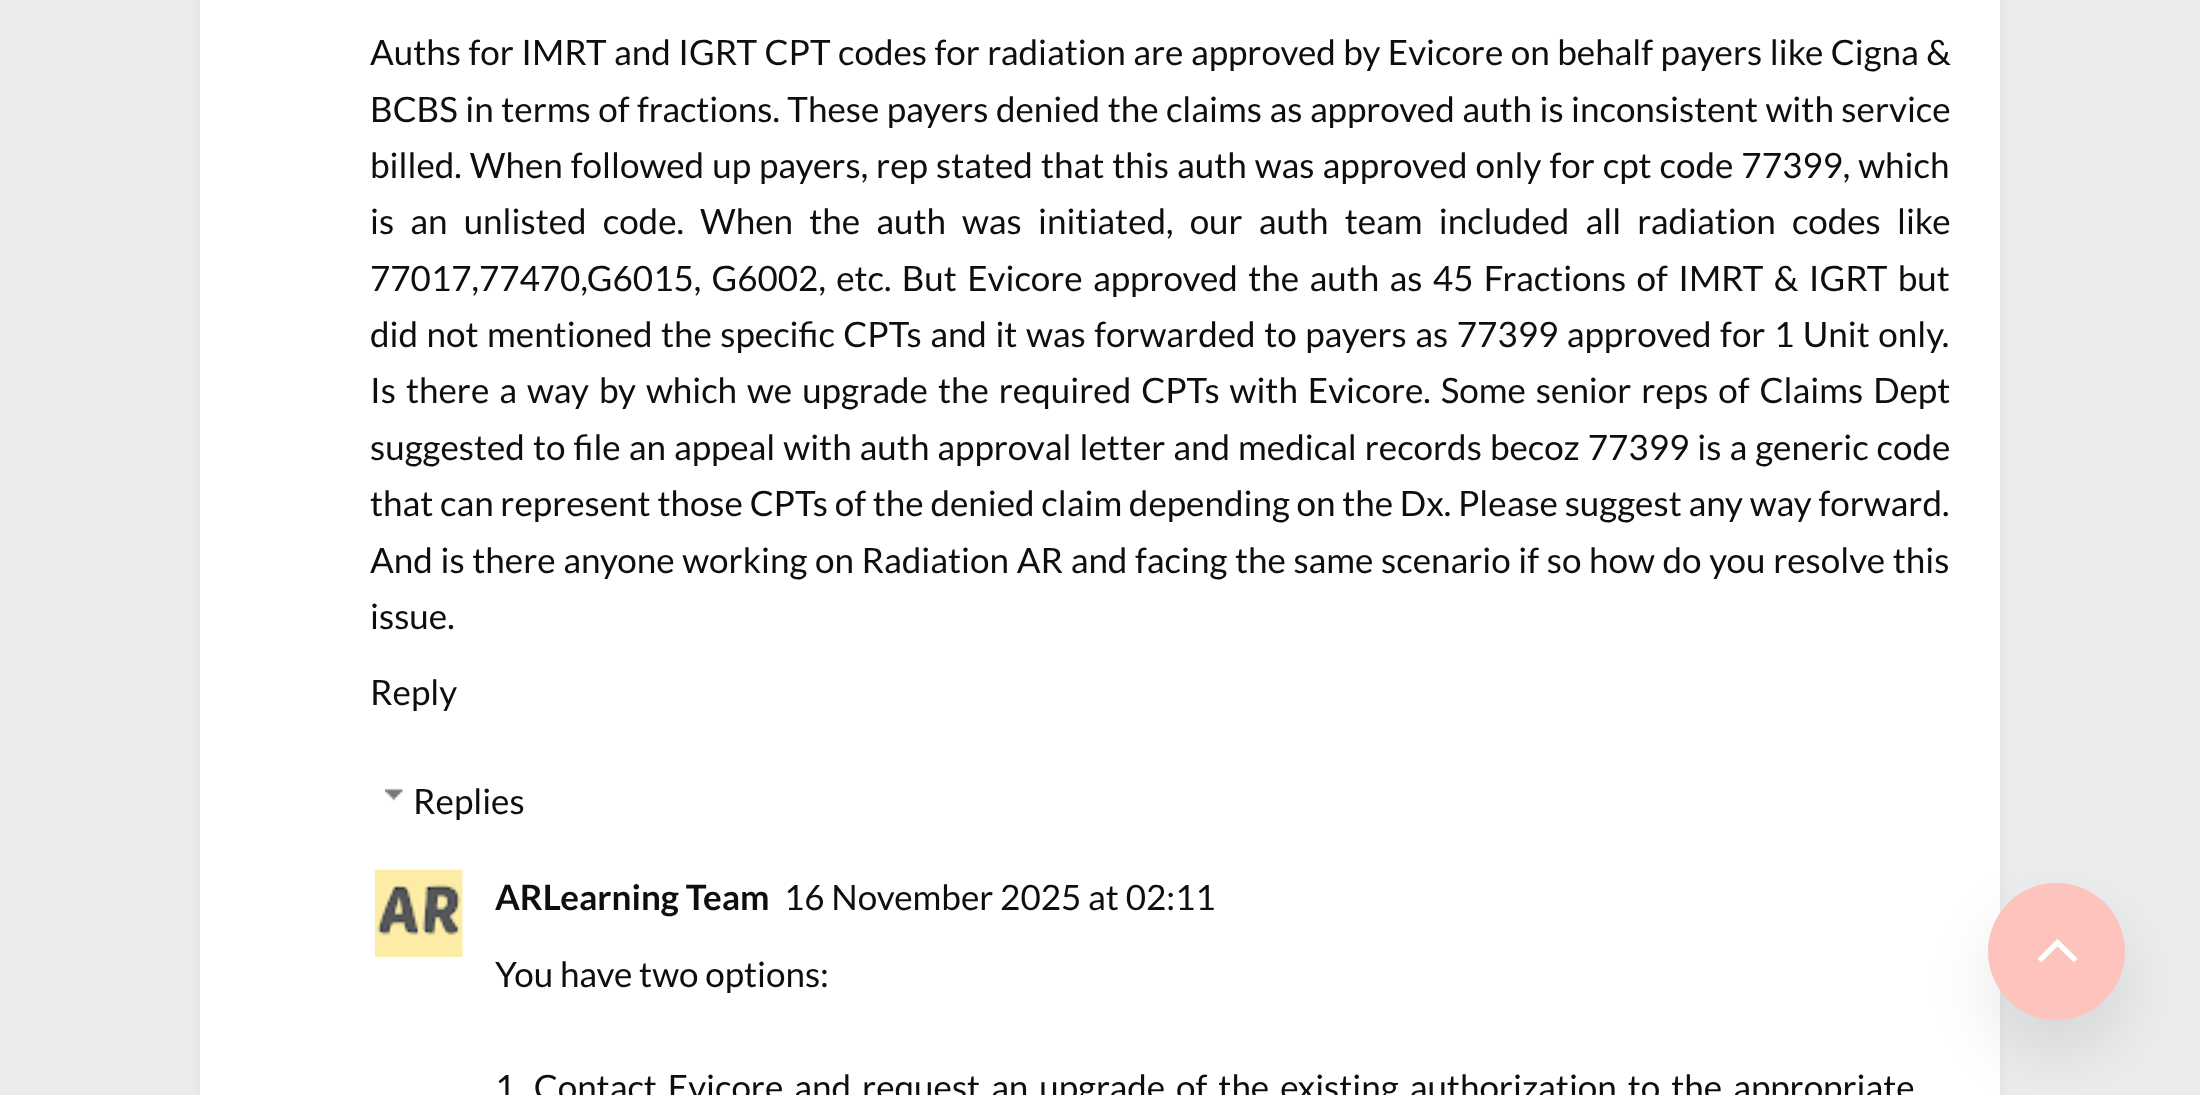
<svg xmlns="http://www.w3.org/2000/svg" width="2200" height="1095">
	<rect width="100%" height="100%" fill="#EAECEE" />
	<rect x="200" y="-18" width="1800" height="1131" fill="#000001" fill-opacity="0.05" filter="blur(6px)" />
	<rect x="200" y="0" width="1800" height="1095" fill="#FFFFFF" />
	<g font-family="Lato" font-size="35" fill="#0E0E0E">
		<text x="370" y="65" word-spacing="0.75">Auths for IMRT and IGRT CPT codes for radiation are approved by Evicore on behalf payers like Cigna &amp;</text>
		<text x="370" y="122" word-spacing="0.75">BCBS in terms of fractions. These payers denied the claims as approved auth is inconsistent with service</text>
		<text x="370" y="178" word-spacing="1.3">billed. When followed up payers, rep stated that this auth was approved only for cpt code 77399, which</text>
		<text x="370" y="234" word-spacing="9.4">is an unlisted code. When the auth was initiated, our auth team included all radiation codes like</text>
		<text x="370" y="291" word-spacing="3.6">77017,77470,G6015, G6002, etc. But Evicore approved the auth as 45 Fractions of IMRT &amp; IGRT but</text>
		<text x="370" y="347" word-spacing="1.75">did not mentioned the specific CPTs and it was forwarded to payers as 77399 approved for 1 Unit only.</text>
		<text x="370" y="403" word-spacing="3.25">Is there a way by which we upgrade the required CPTs with Evicore. Some senior reps of Claims Dept</text>
		<text x="370" y="460" word-spacing="1.25">suggested to file an appeal with auth approval letter and medical records becoz 77399 is a generic code</text>
		<text x="370" y="516">that can represent those CPTs of the denied claim depending on the Dx. Please suggest any way forward.</text>
		<text x="370" y="573" word-spacing="0.9">And is there anyone working on Radiation AR and facing the same scenario if so how do you resolve this</text>
		<text x="370" y="629">issue.</text>
		<text x="370" y="705">Reply</text>
	</g>
	<image x="385" y="788" width="18" height="13" href="assets/img1.png" />
	<text x="413" y="814" font-family="Lato" font-size="35" fill="#0E0E0E">Replies</text>
	<image x="375" y="869" width="88" height="88" href="assets/img2.png" />
	<text x="495" y="910" font-family="Lato" font-size="35" font-weight="700" fill="#0E0E0E">ARLearning Team</text>
	<g font-family="Lato" font-size="35" fill="#0E0E0E">
		<text x="784" y="910">16 November 2025 at 02:11</text>
		<text x="495" y="987">You have two options:</text>
		<text x="495" y="1100" word-spacing="4.25">1. Contact Evicore and request an upgrade of the existing authorization to the appropriate</text>
	</g>
	<rect x="1988" y="915" width="137" height="138" rx="68.5" fill="#000000" fill-opacity="0.09" filter="blur(31px)" />
	<circle cx="2056.5" cy="951.5" r="68.5" fill="#FFC3BD" />
	<image x="2038" y="939" width="39" height="23" href="assets/img3.png" />
</svg>
